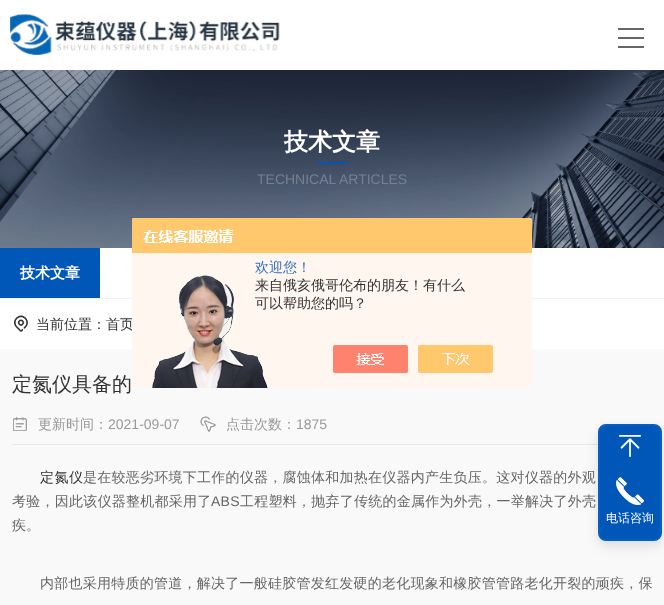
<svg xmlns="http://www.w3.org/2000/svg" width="664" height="605">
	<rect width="100%" height="100%" fill="#F9F9F9" />
	<rect x="0" y="0" width="664" height="70" fill="#FFFFFF" />
	<image x="10" y="14" width="270" height="41" href="assets/img1.png" />
	<rect x="618" y="28" width="26" height="2" fill="#666666" />
	<rect x="618" y="37" width="26" height="2" fill="#666666" />
	<rect x="618" y="46" width="26" height="2" fill="#666666" />
	<image x="0" y="70" width="664" height="178" href="assets/img2.png" />
	<text x="284" y="150" font-family="WenQuanYi Zen Hei" font-size="24" font-weight="700" fill="#FFFFFF">技术文章</text>
	<rect x="317" y="162" width="30" height="2" fill="#0057B8" />
	<text x="257" y="184" font-family="Liberation Sans" font-size="14" fill="#768091">TECHNICAL ARTICLES</text>
	<rect x="0" y="248" width="664" height="101" fill="#FFFFFF" />
	<rect x="0" y="298" width="664" height="1" fill="#F0F0F0" />
	<rect x="0" y="248" width="100" height="50" fill="#0057B8" />
	<text x="20" y="278" font-family="WenQuanYi Zen Hei" font-size="15" font-weight="700" fill="#FFFFFF">技术文章</text>
	<image x="14" y="315" width="14" height="17" href="assets/img3.png" />
	<text x="36" y="329" font-family="WenQuanYi Zen Hei" font-size="14" font-weight="500" fill="#333333">当前位置：首页</text>
	<image x="132" y="218" width="400" height="170" href="assets/img4.png" />
	<text x="255" y="272" font-family="WenQuanYi Zen Hei" font-size="14" font-weight="500" fill="#2E6EC6">欢迎您！</text>
	<g font-family="WenQuanYi Zen Hei" font-size="14" font-weight="500" fill="#333333">
		<text x="255" y="290">来自俄亥俄哥伦布的朋友！有什么</text>
		<text x="255" y="308">可以帮助您的吗？</text>
	</g>
	<text x="12" y="391" font-family="WenQuanYi Zen Hei" font-size="20" font-weight="500" fill="#333333">定氮仪具备的</text>
	<rect x="12" y="444" width="586" height="1" fill="#E6E6E6" />
	<image x="13" y="417" width="14" height="14" href="assets/img5.png" />
	<text x="38" y="429" font-family="WenQuanYi Zen Hei" font-size="14" font-weight="500" fill="#999999">更新时间：</text>
	<text x="108" y="429" font-family="Liberation Sans" font-size="14" fill="#999999">2021-09-07</text>
	<image x="200" y="416" width="16" height="16" href="assets/img6.png" />
	<text x="226" y="429" font-family="WenQuanYi Zen Hei" font-size="14" font-weight="500" fill="#999999">点击次数：</text>
	<text x="296" y="429" font-family="Liberation Sans" font-size="14" fill="#999999">1875</text>
	<text x="40" y="482" font-family="WenQuanYi Zen Hei" font-size="14" font-weight="500" letter-spacing="0.5" fill="#333333">定氮仪</text>
	<g font-family="WenQuanYi Zen Hei" font-size="14" font-weight="500" letter-spacing="0.25" fill="#666666">
		<text x="83" y="482">是在较恶劣环境下工作的仪器，腐蚀体和加热在仪器内产生负压。这对仪器的外观</text>
		<text x="12" y="506">考验，因此该仪器整机都采用了</text>
	</g>
	<text x="211" y="506" font-family="Liberation Sans" font-size="14" letter-spacing="0.25" fill="#666666">ABS</text>
	<text x="240" y="506" font-family="WenQuanYi Zen Hei" font-size="14" font-weight="500" letter-spacing="0.25" fill="#666666">工程塑料，抛弃了传统的金属作为外壳，一举解决了外壳</text>
	<text x="12" y="530" font-family="WenQuanYi Zen Hei" font-size="14" font-weight="500" fill="#666666">疾。</text>
	<text x="40" y="588" font-family="WenQuanYi Zen Hei" font-size="14" font-weight="500" letter-spacing="0.25" fill="#666666">内部也采用特质的管道，解决了一般硅胶管发红发硬的老化现象和橡胶管管路老化开裂的顽疾，保</text>
	<rect x="598" y="430" width="64" height="117" rx="8" fill="#000000" fill-opacity="0.1" filter="blur(6px)" />
	<rect x="599" y="425" width="62" height="115" rx="7" fill="#0057B8" stroke="#0460C6" stroke-width="2" />
	<image x="619" y="435" width="22" height="22" href="assets/img7.png" />
	<image x="616" y="477" width="28" height="28" href="assets/img8.png" />
	<text x="606" y="522" font-family="WenQuanYi Zen Hei" font-size="12" font-weight="500" fill="#FFFFFF">电话咨询</text>
</svg>
